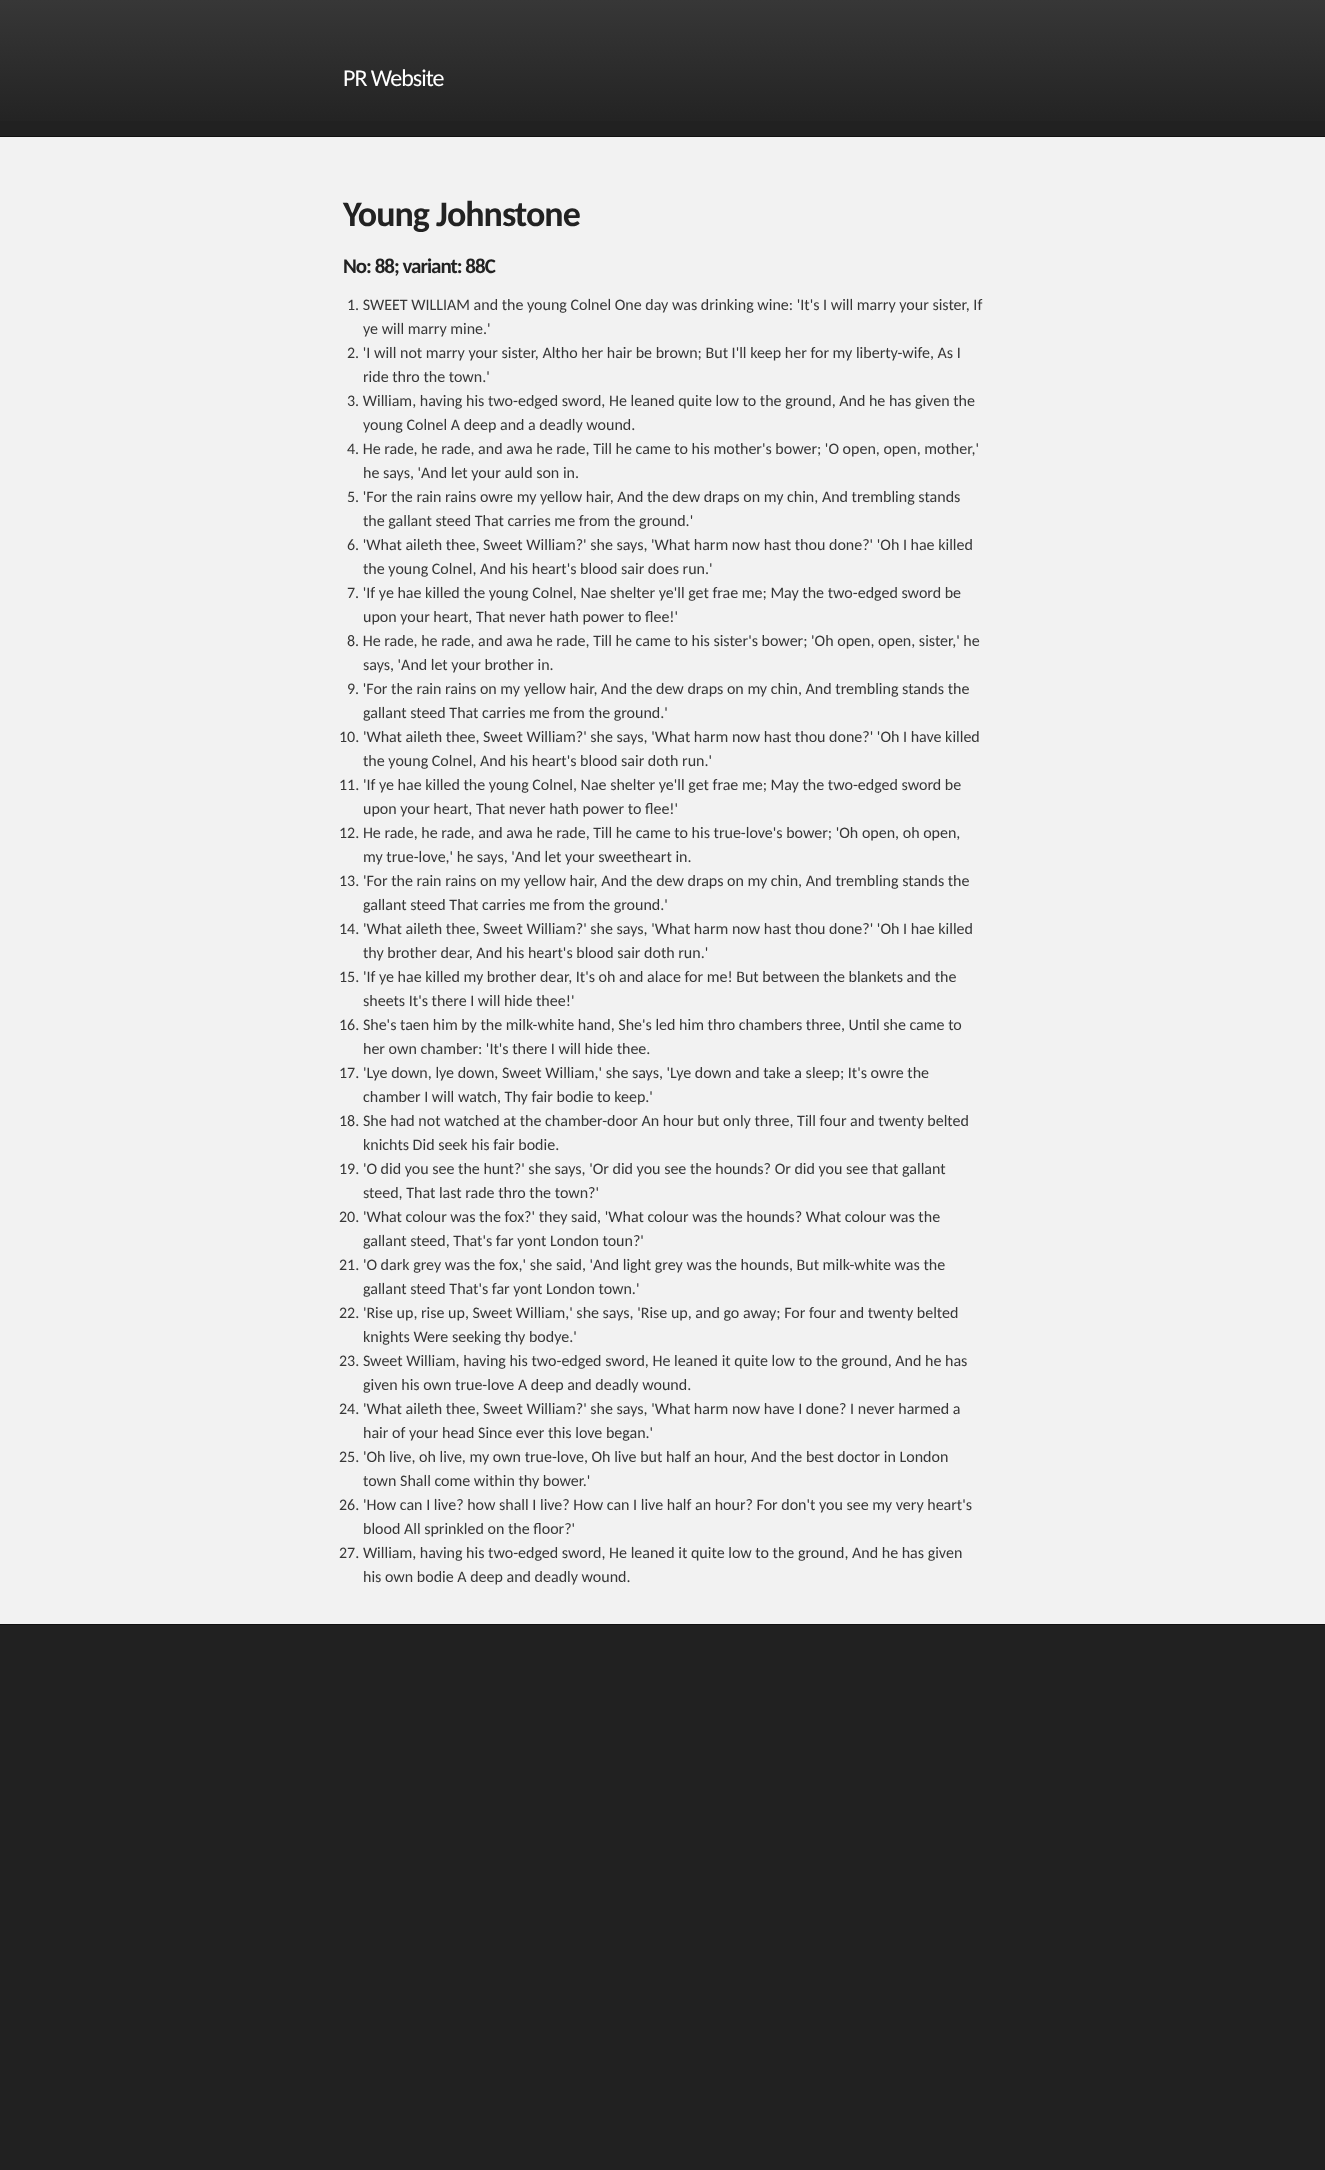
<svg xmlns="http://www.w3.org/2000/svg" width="1325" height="2170">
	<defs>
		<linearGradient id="g1" gradientUnits="userSpaceOnUse" x1="663" y1="0" x2="663" y2="136"><stop offset="0" stop-color="#373737" /><stop offset="1" stop-color="#212121" /></linearGradient>
	</defs>
	<rect width="100%" height="100%" fill="#212121" />
	<rect x="0" y="0" width="1325" height="121" fill="url(#g1)" />
	<text x="343" y="86" font-family="Carlito" font-size="24" letter-spacing="-1" fill="#FFFFFF">PR Website</text>
	<rect x="0" y="137" width="1325" height="1487" fill="#F2F2F2" />
	<rect x="0" y="136" width="1325" height="1" fill="#111111" />
	<rect x="0" y="1624" width="1325" height="1" fill="#111111" />
	<text x="343" y="226" font-family="Carlito" font-size="36" font-weight="700" letter-spacing="-1" fill="#222222">Young Johnstone</text>
	<text x="343" y="273" font-family="Carlito" font-size="21" font-weight="700" letter-spacing="-1" fill="#222222">No: 88; variant: 88C</text>
	<g font-family="Carlito" font-size="16" fill="#373737">
		<text x="347" y="310">1. SWEET WILLIAM and the young Colnel One day was drinking wine: 'It's I will marry your sister, If</text>
		<text x="363" y="334">ye will marry mine.'</text>
		<text x="347" y="358">2. 'I will not marry your sister, Altho her hair be brown; But I'll keep her for my liberty-wife, As I</text>
		<text x="363" y="382">ride thro the town.'</text>
		<text x="347" y="406">3. William, having his two-edged sword, He leaned quite low to the ground, And he has given the</text>
		<text x="363" y="430">young Colnel A deep and a deadly wound.</text>
		<text x="347" y="454">4. He rade, he rade, and awa he rade, Till he came to his mother's bower; 'O open, open, mother,'</text>
		<text x="363" y="478">he says, 'And let your auld son in.</text>
		<text x="347" y="502">5. 'For the rain rains owre my yellow hair, And the dew draps on my chin, And trembling stands</text>
		<text x="363" y="526">the gallant steed That carries me from the ground.'</text>
		<text x="347" y="550">6. 'What aileth thee, Sweet William?' she says, 'What harm now hast thou done?' 'Oh I hae killed</text>
		<text x="363" y="574">the young Colnel, And his heart's blood sair does run.'</text>
		<text x="347" y="598">7. 'If ye hae killed the young Colnel, Nae shelter ye'll get frae me; May the two-edged sword be</text>
		<text x="363" y="622">upon your heart, That never hath power to flee!'</text>
		<text x="347" y="646">8. He rade, he rade, and awa he rade, Till he came to his sister's bower; 'Oh open, open, sister,' he</text>
		<text x="363" y="670">says, 'And let your brother in.</text>
		<text x="347" y="694">9. 'For the rain rains on my yellow hair, And the dew draps on my chin, And trembling stands the</text>
		<text x="363" y="718">gallant steed That carries me from the ground.'</text>
		<text x="339" y="742">10. 'What aileth thee, Sweet William?' she says, 'What harm now hast thou done?' 'Oh I have killed</text>
		<text x="363" y="766">the young Colnel, And his heart's blood sair doth run.'</text>
		<text x="339" y="790">11. 'If ye hae killed the young Colnel, Nae shelter ye'll get frae me; May the two-edged sword be</text>
		<text x="363" y="814">upon your heart, That never hath power to flee!'</text>
		<text x="339" y="838">12. He rade, he rade, and awa he rade, Till he came to his true-love's bower; 'Oh open, oh open,</text>
		<text x="363" y="862">my true-love,' he says, 'And let your sweetheart in.</text>
		<text x="339" y="886">13. 'For the rain rains on my yellow hair, And the dew draps on my chin, And trembling stands the</text>
		<text x="363" y="910">gallant steed That carries me from the ground.'</text>
		<text x="339" y="934">14. 'What aileth thee, Sweet William?' she says, 'What harm now hast thou done?' 'Oh I hae killed</text>
		<text x="363" y="958">thy brother dear, And his heart's blood sair doth run.'</text>
		<text x="339" y="982">15. 'If ye hae killed my brother dear, It's oh and alace for me! But between the blankets and the</text>
		<text x="363" y="1006">sheets It's there I will hide thee!'</text>
		<text x="339" y="1030">16. She's taen him by the milk-white hand, She's led him thro chambers three, Until she came to</text>
		<text x="363" y="1054">her own chamber: 'It's there I will hide thee.</text>
		<text x="339" y="1078">17. 'Lye down, lye down, Sweet William,' she says, 'Lye down and take a sleep; It's owre the</text>
		<text x="363" y="1102">chamber I will watch, Thy fair bodie to keep.'</text>
		<text x="339" y="1126">18. She had not watched at the chamber-door An hour but only three, Till four and twenty belted</text>
		<text x="363" y="1150">knichts Did seek his fair bodie.</text>
		<text x="339" y="1174">19. 'O did you see the hunt?' she says, 'Or did you see the hounds? Or did you see that gallant</text>
		<text x="363" y="1198">steed, That last rade thro the town?'</text>
		<text x="339" y="1222">20. 'What colour was the fox?' they said, 'What colour was the hounds? What colour was the</text>
		<text x="363" y="1246">gallant steed, That's far yont London toun?'</text>
		<text x="339" y="1270">21. 'O dark grey was the fox,' she said, 'And light grey was the hounds, But milk-white was the</text>
		<text x="363" y="1294">gallant steed That's far yont London town.'</text>
		<text x="339" y="1318">22. 'Rise up, rise up, Sweet William,' she says, 'Rise up, and go away; For four and twenty belted</text>
		<text x="363" y="1342">knights Were seeking thy bodye.'</text>
		<text x="339" y="1366">23. Sweet William, having his two-edged sword, He leaned it quite low to the ground, And he has</text>
		<text x="363" y="1390">given his own true-love A deep and deadly wound.</text>
		<text x="339" y="1414">24. 'What aileth thee, Sweet William?' she says, 'What harm now have I done? I never harmed a</text>
		<text x="363" y="1438">hair of your head Since ever this love began.'</text>
		<text x="339" y="1462">25. 'Oh live, oh live, my own true-love, Oh live but half an hour, And the best doctor in London</text>
		<text x="363" y="1486">town Shall come within thy bower.'</text>
		<text x="339" y="1510">26. 'How can I live? how shall I live? How can I live half an hour? For don't you see my very heart's</text>
		<text x="363" y="1534">blood All sprinkled on the floor?'</text>
		<text x="339" y="1558">27. William, having his two-edged sword, He leaned it quite low to the ground, And he has given</text>
		<text x="363" y="1582">his own bodie A deep and deadly wound.</text>
	</g>
</svg>
